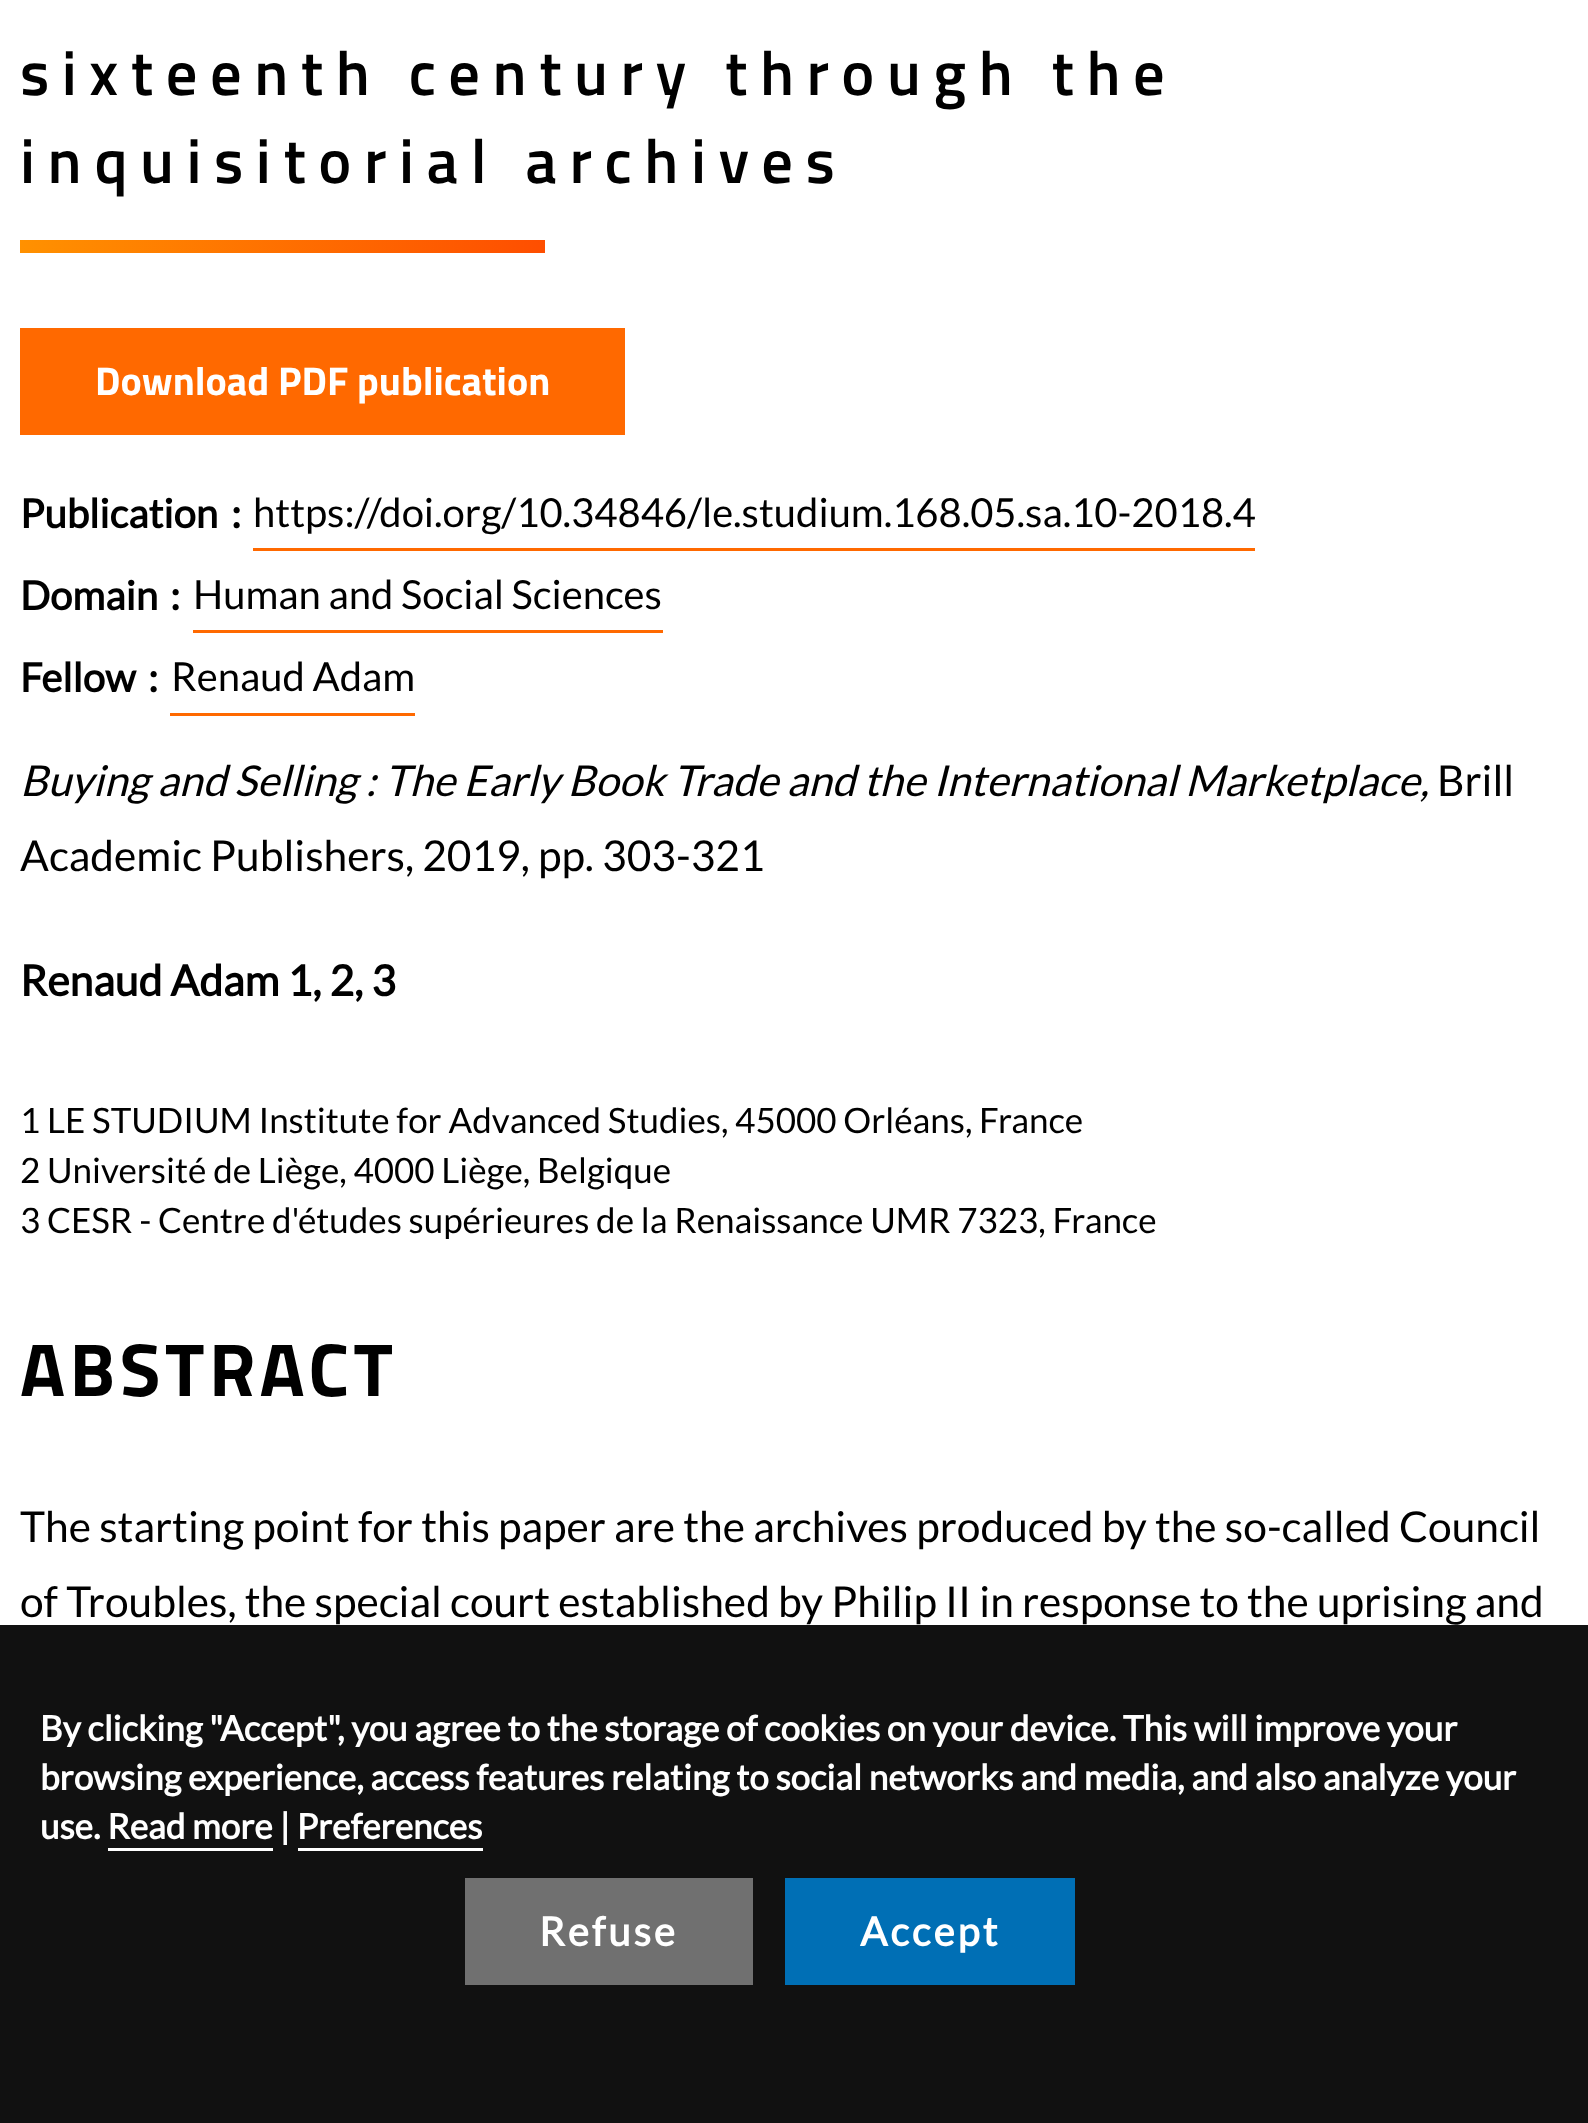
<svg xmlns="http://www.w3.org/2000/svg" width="1588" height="2123">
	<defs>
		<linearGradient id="g1" gradientUnits="userSpaceOnUse" x1="20" y1="246" x2="545" y2="246"><stop offset="0" stop-color="#FF9100" /><stop offset="1" stop-color="#FE4E00" /></linearGradient>
	</defs>
	<rect width="100%" height="100%" fill="#FFFFFF" />
	<g font-family="Titillium Web" font-size="62.5" font-weight="600" letter-spacing="12.5" fill="#000000">
		<text x="20" y="95">sixteenth century through the</text>
		<text x="20" y="183">inquisitorial archives</text>
	</g>
	<rect x="20" y="240" width="525" height="13" fill="url(#g1)" />
	<rect x="20" y="328" width="605" height="107" fill="#FF6900" />
	<text x="95" y="395" font-family="Titillium Web" font-size="40" font-weight="700" fill="#FFFFFF">Download PDF publication</text>
	<g font-family="Lato" font-size="40" font-weight="700" fill="#000000">
		<text x="20" y="528">Publication</text>
		<text x="231" y="528">:</text>
	</g>
	<text x="253" y="527" font-family="Lato" font-size="40" fill="#000000">https://doi.org/10.34846/le.studium.168.05.sa.10-2018.4</text>
	<rect x="253" y="548" width="1002" height="3" fill="#FF6900" />
	<g font-family="Lato" font-size="40" font-weight="700" fill="#000000">
		<text x="20" y="610">Domain</text>
		<text x="170" y="610">:</text>
	</g>
	<text x="193" y="609" font-family="Lato" font-size="40" fill="#000000">Human and Social Sciences</text>
	<rect x="193" y="630" width="470" height="3" fill="#FF6900" />
	<g font-family="Lato" font-size="40" font-weight="700" fill="#000000">
		<text x="20" y="692">Fellow</text>
		<text x="148" y="692">:</text>
	</g>
	<text x="171" y="691" font-family="Lato" font-size="40" fill="#000000">Renaud Adam</text>
	<rect x="170" y="713" width="245" height="3" fill="#FF6900" />
	<text x="20" y="796" font-family="Lato" font-size="42.5" font-style="italic" fill="#000000">Buying and Selling : The Early Book Trade and the International Marketplace,</text>
	<g font-family="Lato" font-size="42.5" fill="#000000">
		<text x="1437" y="796">Brill</text>
		<text x="20" y="871">Academic Publishers, 2019, pp. 303-321</text>
	</g>
	<text x="20" y="996" font-family="Lato" font-size="42.5" font-weight="700" fill="#000000">Renaud Adam 1, 2, 3</text>
	<g font-family="Lato" font-size="35" fill="#000000">
		<text x="20" y="1133">1 LE STUDIUM Institute for Advanced Studies, 45000 Orléans, France</text>
		<text x="20" y="1183">2 Université de Liège, 4000 Liège, Belgique</text>
		<text x="20" y="1233">3 CESR - Centre d'études supérieures de la Renaissance UMR 7323, France</text>
	</g>
	<text x="20" y="1396" font-family="Titillium Web" font-size="75" font-weight="700" letter-spacing="4.5" fill="#000000">ABSTRACT</text>
	<g font-family="Lato" font-size="42.5" fill="#000000">
		<text x="20" y="1542">The starting point for this paper are the archives produced by the so-called Council</text>
		<text x="20" y="1617">of Troubles, the special court established by Philip II in response to the uprising and</text>
	</g>
	<rect x="0" y="1625" width="1588" height="498" fill="#111111" />
	<g font-family="Lato" font-size="35" font-weight="700" fill="#FFFFFF">
		<text x="40" y="1741">By clicking "Accept", you agree to the storage of cookies on your device. This will improve your</text>
		<text x="40" y="1790">browsing experience, access features relating to social networks and media, and also analyze your</text>
		<text x="40" y="1839">use. Read more | Preferences</text>
	</g>
	<rect x="108" y="1848" width="165" height="3" fill="#FFFFFF" />
	<rect x="298" y="1848" width="185" height="3" fill="#FFFFFF" />
	<rect x="465" y="1878" width="288" height="107" fill="#707070" />
	<text x="539" y="1946" font-family="Lato" font-size="40" font-weight="700" letter-spacing="3" fill="#FFFFFF">Refuse</text>
	<rect x="785" y="1878" width="290" height="107" fill="#006FB5" />
	<text x="860" y="1946" font-family="Lato" font-size="40" font-weight="700" letter-spacing="3" fill="#FFFFFF">Accept</text>
</svg>
